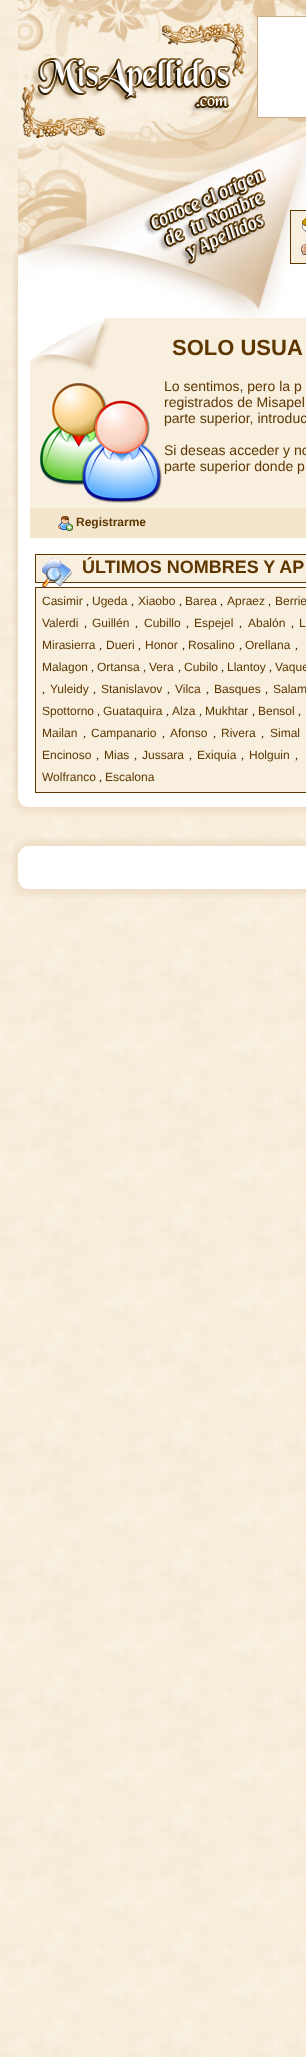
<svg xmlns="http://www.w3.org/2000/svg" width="306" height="2057">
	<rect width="100%" height="100%" fill="#FFFFFF" />
	<image x="0" y="0" width="306" height="2057" href="assets/img1.png" />
	<image x="18" y="0" width="235" height="195" href="assets/img2.png" />
	<image x="253" y="0" width="53" height="135" href="assets/img3.png" />
	<image x="253" y="135" width="53" height="60" href="assets/img4.png" />
	<image x="12" y="249" width="6" height="69" href="assets/img5.png" />
	<image x="18" y="195" width="235" height="123" href="assets/img6.png" />
	<image x="253" y="195" width="53" height="123" href="assets/img7.png" />
	<rect x="290.5" y="210.5" width="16" height="53" fill="#F8EFDF" stroke="#5E3700" />
	<image x="302" y="218" width="4" height="14" href="assets/img8.png" />
	<image x="301" y="241" width="5" height="14" href="assets/img9.png" />
	<image x="12" y="318" width="6" height="475" href="assets/img10.png" />
	<rect x="18" y="318" width="288" height="475" fill="#FFFFFF" />
	<rect x="30" y="318" width="276" height="190" fill="#F8EFDF" />
	<image x="30" y="318" width="79" height="54" href="assets/img11.png" />
	<text x="172" y="355" font-family="Liberation Sans" font-size="22" font-weight="700" fill="#5E3700">SOLO USUA</text>
	<image x="40" y="383" width="122" height="120" href="assets/img12.png" />
	<g font-family="Liberation Sans" font-size="14" fill="#5E3700">
		<text x="164" y="391">Lo sentimos, pero la p</text>
		<text x="164" y="407">registrados de Misapel</text>
		<text x="164" y="423">parte superior, introduc</text>
		<text x="164" y="455">Si deseas acceder y no</text>
		<text x="164" y="471">parte superior donde p</text>
	</g>
	<rect x="30" y="508" width="276" height="30" fill="#F4E6CC" />
	<image x="58" y="516" width="15" height="15" href="assets/img13.png" />
	<text x="76" y="526" font-family="Liberation Sans" font-size="12" font-weight="700" fill="#5E3700">Registrarme</text>
	<rect x="35.5" y="554.5" width="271" height="28" fill="#F8EFDF" stroke="#5E3700" />
	<image x="42" y="557" width="30" height="30" href="assets/img14.png" />
	<text x="82" y="573" font-family="Liberation Sans" font-size="18" font-weight="700" fill="#5E3700">ÚLTIMOS NOMBRES Y AP</text>
	<rect x="35.5" y="587.5" width="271" height="205" fill="#F8EFDF" stroke="#5E3700" />
	<text x="42" y="605" font-family="Liberation Sans" font-size="12" fill="#5E3700">Casimir</text>
	<text x="86" y="605" font-family="Liberation Serif" font-size="12" fill="#392201">,</text>
	<text x="92" y="605" font-family="Liberation Sans" font-size="12" fill="#5E3700">Ugeda</text>
	<text x="131" y="605" font-family="Liberation Serif" font-size="12" fill="#392201">,</text>
	<text x="138" y="605" font-family="Liberation Sans" font-size="12" fill="#5E3700">Xiaobo</text>
	<text x="179" y="605" font-family="Liberation Serif" font-size="12" fill="#392201">,</text>
	<text x="185" y="605" font-family="Liberation Sans" font-size="12" fill="#5E3700">Barea</text>
	<text x="220" y="605" font-family="Liberation Serif" font-size="12" fill="#392201">,</text>
	<text x="227" y="605" font-family="Liberation Sans" font-size="12" fill="#5E3700">Apraez</text>
	<text x="268" y="605" font-family="Liberation Serif" font-size="12" fill="#392201">,</text>
	<g font-family="Liberation Sans" font-size="12" fill="#5E3700">
		<text x="275" y="605">Berrie</text>
		<text x="42" y="627">Valerdi</text>
	</g>
	<text x="84" y="627" font-family="Liberation Serif" font-size="12" fill="#392201">,</text>
	<text x="92" y="627" font-family="Liberation Sans" font-size="12" fill="#5E3700">Guillén</text>
	<text x="135" y="627" font-family="Liberation Serif" font-size="12" fill="#392201">,</text>
	<text x="144" y="627" font-family="Liberation Sans" font-size="12" fill="#5E3700">Cubillo</text>
	<text x="186" y="627" font-family="Liberation Serif" font-size="12" fill="#392201">,</text>
	<text x="194" y="627" font-family="Liberation Sans" font-size="12" fill="#5E3700">Espejel</text>
	<text x="239" y="627" font-family="Liberation Serif" font-size="12" fill="#392201">,</text>
	<text x="248" y="627" font-family="Liberation Sans" font-size="12" fill="#5E3700">Abalón</text>
	<text x="291" y="627" font-family="Liberation Serif" font-size="12" fill="#392201">,</text>
	<g font-family="Liberation Sans" font-size="12" fill="#5E3700">
		<text x="299" y="627">L</text>
		<text x="42" y="649">Mirasierra</text>
	</g>
	<text x="99" y="649" font-family="Liberation Serif" font-size="12" fill="#392201">,</text>
	<text x="106" y="649" font-family="Liberation Sans" font-size="12" fill="#5E3700">Dueri</text>
	<text x="138" y="649" font-family="Liberation Serif" font-size="12" fill="#392201">,</text>
	<text x="145" y="649" font-family="Liberation Sans" font-size="12" fill="#5E3700">Honor</text>
	<text x="182" y="649" font-family="Liberation Serif" font-size="12" fill="#392201">,</text>
	<text x="188" y="649" font-family="Liberation Sans" font-size="12" fill="#5E3700">Rosalino</text>
	<text x="239" y="649" font-family="Liberation Serif" font-size="12" fill="#392201">,</text>
	<text x="245" y="649" font-family="Liberation Sans" font-size="12" fill="#5E3700">Orellana</text>
	<text x="295" y="649" font-family="Liberation Serif" font-size="12" fill="#392201">,</text>
	<text x="42" y="671" font-family="Liberation Sans" font-size="12" fill="#5E3700">Malagon</text>
	<text x="91" y="671" font-family="Liberation Serif" font-size="12" fill="#392201">,</text>
	<text x="97" y="671" font-family="Liberation Sans" font-size="12" fill="#5E3700">Ortansa</text>
	<text x="143" y="671" font-family="Liberation Serif" font-size="12" fill="#392201">,</text>
	<text x="149" y="671" font-family="Liberation Sans" font-size="12" fill="#5E3700">Vera</text>
	<text x="178" y="671" font-family="Liberation Serif" font-size="12" fill="#392201">,</text>
	<text x="184" y="671" font-family="Liberation Sans" font-size="12" fill="#5E3700">Cubilo</text>
	<text x="221" y="671" font-family="Liberation Serif" font-size="12" fill="#392201">,</text>
	<text x="227" y="671" font-family="Liberation Sans" font-size="12" fill="#5E3700">Llantoy</text>
	<text x="269" y="671" font-family="Liberation Serif" font-size="12" fill="#392201">,</text>
	<text x="275" y="671" font-family="Liberation Sans" font-size="12" fill="#5E3700">Vaque</text>
	<text x="42" y="693" font-family="Liberation Serif" font-size="12" fill="#392201">,</text>
	<text x="50" y="693" font-family="Liberation Sans" font-size="12" fill="#5E3700">Yuleidy</text>
	<text x="93" y="693" font-family="Liberation Serif" font-size="12" fill="#392201">,</text>
	<text x="101" y="693" font-family="Liberation Sans" font-size="12" fill="#5E3700">Stanislavov</text>
	<text x="167" y="693" font-family="Liberation Serif" font-size="12" fill="#392201">,</text>
	<text x="175" y="693" font-family="Liberation Sans" font-size="12" fill="#5E3700">Vilca</text>
	<text x="206" y="693" font-family="Liberation Serif" font-size="12" fill="#392201">,</text>
	<text x="214" y="693" font-family="Liberation Sans" font-size="12" fill="#5E3700">Basques</text>
	<text x="265" y="693" font-family="Liberation Serif" font-size="12" fill="#392201">,</text>
	<g font-family="Liberation Sans" font-size="12" fill="#5E3700">
		<text x="273" y="693">Salam</text>
		<text x="42" y="715">Spottorno</text>
	</g>
	<text x="97" y="715" font-family="Liberation Serif" font-size="12" fill="#392201">,</text>
	<text x="103" y="715" font-family="Liberation Sans" font-size="12" fill="#5E3700">Guataquira</text>
	<text x="166" y="715" font-family="Liberation Serif" font-size="12" fill="#392201">,</text>
	<text x="172" y="715" font-family="Liberation Sans" font-size="12" fill="#5E3700">Alza</text>
	<text x="199" y="715" font-family="Liberation Serif" font-size="12" fill="#392201">,</text>
	<text x="205" y="715" font-family="Liberation Sans" font-size="12" fill="#5E3700">Mukhtar</text>
	<text x="252" y="715" font-family="Liberation Serif" font-size="12" fill="#392201">,</text>
	<text x="258" y="715" font-family="Liberation Sans" font-size="12" fill="#5E3700">Bensol</text>
	<text x="298" y="715" font-family="Liberation Serif" font-size="12" fill="#392201">,</text>
	<text x="42" y="737" font-family="Liberation Sans" font-size="12" fill="#5E3700">Mailan</text>
	<text x="83" y="737" font-family="Liberation Serif" font-size="12" fill="#392201">,</text>
	<text x="91" y="737" font-family="Liberation Sans" font-size="12" fill="#5E3700">Campanario</text>
	<text x="162" y="737" font-family="Liberation Serif" font-size="12" fill="#392201">,</text>
	<text x="170" y="737" font-family="Liberation Sans" font-size="12" fill="#5E3700">Afonso</text>
	<text x="213" y="737" font-family="Liberation Serif" font-size="12" fill="#392201">,</text>
	<text x="221" y="737" font-family="Liberation Sans" font-size="12" fill="#5E3700">Rivera</text>
	<text x="261" y="737" font-family="Liberation Serif" font-size="12" fill="#392201">,</text>
	<g font-family="Liberation Sans" font-size="12" fill="#5E3700">
		<text x="270" y="737">Simal</text>
		<text x="42" y="759">Encinoso</text>
	</g>
	<text x="96" y="759" font-family="Liberation Serif" font-size="12" fill="#392201">,</text>
	<text x="104" y="759" font-family="Liberation Sans" font-size="12" fill="#5E3700">Mias</text>
	<text x="134" y="759" font-family="Liberation Serif" font-size="12" fill="#392201">,</text>
	<text x="142" y="759" font-family="Liberation Sans" font-size="12" fill="#5E3700">Jussara</text>
	<text x="189" y="759" font-family="Liberation Serif" font-size="12" fill="#392201">,</text>
	<text x="197" y="759" font-family="Liberation Sans" font-size="12" fill="#5E3700">Exiquia</text>
	<text x="241" y="759" font-family="Liberation Serif" font-size="12" fill="#392201">,</text>
	<text x="249" y="759" font-family="Liberation Sans" font-size="12" fill="#5E3700">Holguin</text>
	<text x="295" y="759" font-family="Liberation Serif" font-size="12" fill="#392201">,</text>
	<text x="42" y="781" font-family="Liberation Sans" font-size="12" fill="#5E3700">Wolfranco</text>
	<text x="99" y="781" font-family="Liberation Serif" font-size="12" fill="#392201">,</text>
	<text x="105" y="781" font-family="Liberation Sans" font-size="12" fill="#5E3700">Escalona</text>
	<image x="10" y="793" width="296" height="23" href="assets/img15.png" />
	<image x="12" y="837" width="294" height="22" href="assets/img16.png" />
	<image x="12" y="859" width="294" height="16" href="assets/img17.png" />
	<image x="10" y="875" width="296" height="23" href="assets/img18.png" />
</svg>
